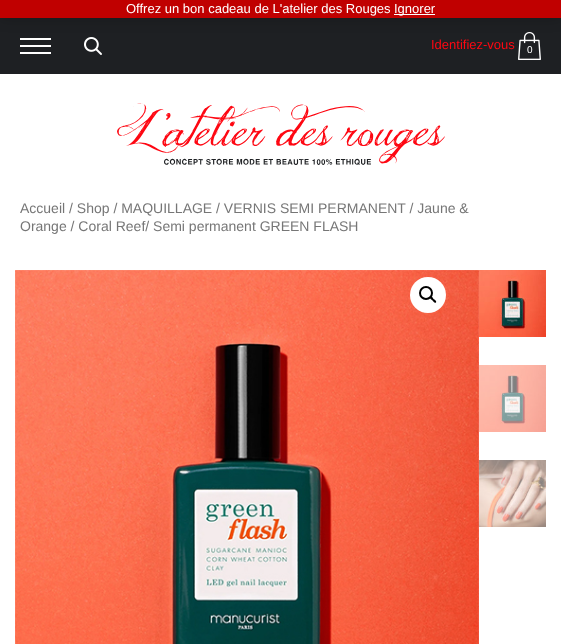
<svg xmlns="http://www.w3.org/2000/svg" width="561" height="644">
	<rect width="100%" height="100%" fill="#FFFFFF" />
	<rect x="0" y="18" width="561" height="56" fill="#1E2023" />
	<rect x="20" y="38" width="31" height="2" fill="#FFFFFF" />
	<image x="84" y="37" width="18" height="18" href="assets/img1.png" />
	<image x="518" y="32" width="23" height="28" href="assets/img2.png" />
	<rect x="0" y="1" width="561" height="18" fill="#000000" fill-opacity="0.2" filter="blur(6.5px)" />
	<rect x="0" y="0" width="561" height="18" fill="#C00000" />
	<text x="126" y="13" font-family="Liberation Sans" font-size="13" fill="#FFFFFF">Offrez un bon cadeau de L'atelier des Rouges</text>
	<rect x="394" y="14" width="41" height="1" fill="#FFFFFF" />
	<text x="394" y="13" font-family="Liberation Sans" font-size="13" fill="#FFFFFF">Ignorer</text>
	<rect x="20" y="45" width="31" height="2" fill="#FFFFFF" />
	<rect x="20" y="52" width="31" height="2" fill="#FFFFFF" />
	<text x="431" y="49" font-family="Liberation Sans" font-size="13" fill="#FE0712">Identifiez-vous</text>
	<text x="527" y="53" font-family="Liberation Sans" font-size="10" fill="#FFFFFF">0</text>
	<image x="117" y="103" width="328" height="62" href="assets/img3.png" />
	<g font-family="Liberation Sans" font-size="14" fill="#767676">
		<text x="20" y="213">Accueil / Shop / MAQUILLAGE / VERNIS SEMI PERMANENT / Jaune &amp;</text>
		<text x="20" y="231">Orange / Coral Reef/ Semi permanent GREEN FLASH</text>
	</g>
	<image x="15" y="270" width="464" height="374" href="assets/img4.png" />
	<image x="479" y="270" width="67" height="67" href="assets/img5.png" />
	<image x="479" y="365" width="67" height="67" href="assets/img6.png" />
	<image x="479" y="460" width="67" height="67" href="assets/img7.png" />
	<circle cx="428" cy="295" r="18" fill="#FFFFFF" />
	<circle cx="426" cy="293" r="6" fill="none" stroke="#000000" stroke-width="2" />
	<path d="M430 296.5C431.5 295.5 433 298 433.5 299C434.5 299.5 437 301 436 302.5C434.5 303.5 433 301 432.5 300.5C431.5 299.5 429 298 430 296.5Z" fill="#000000" />
</svg>
